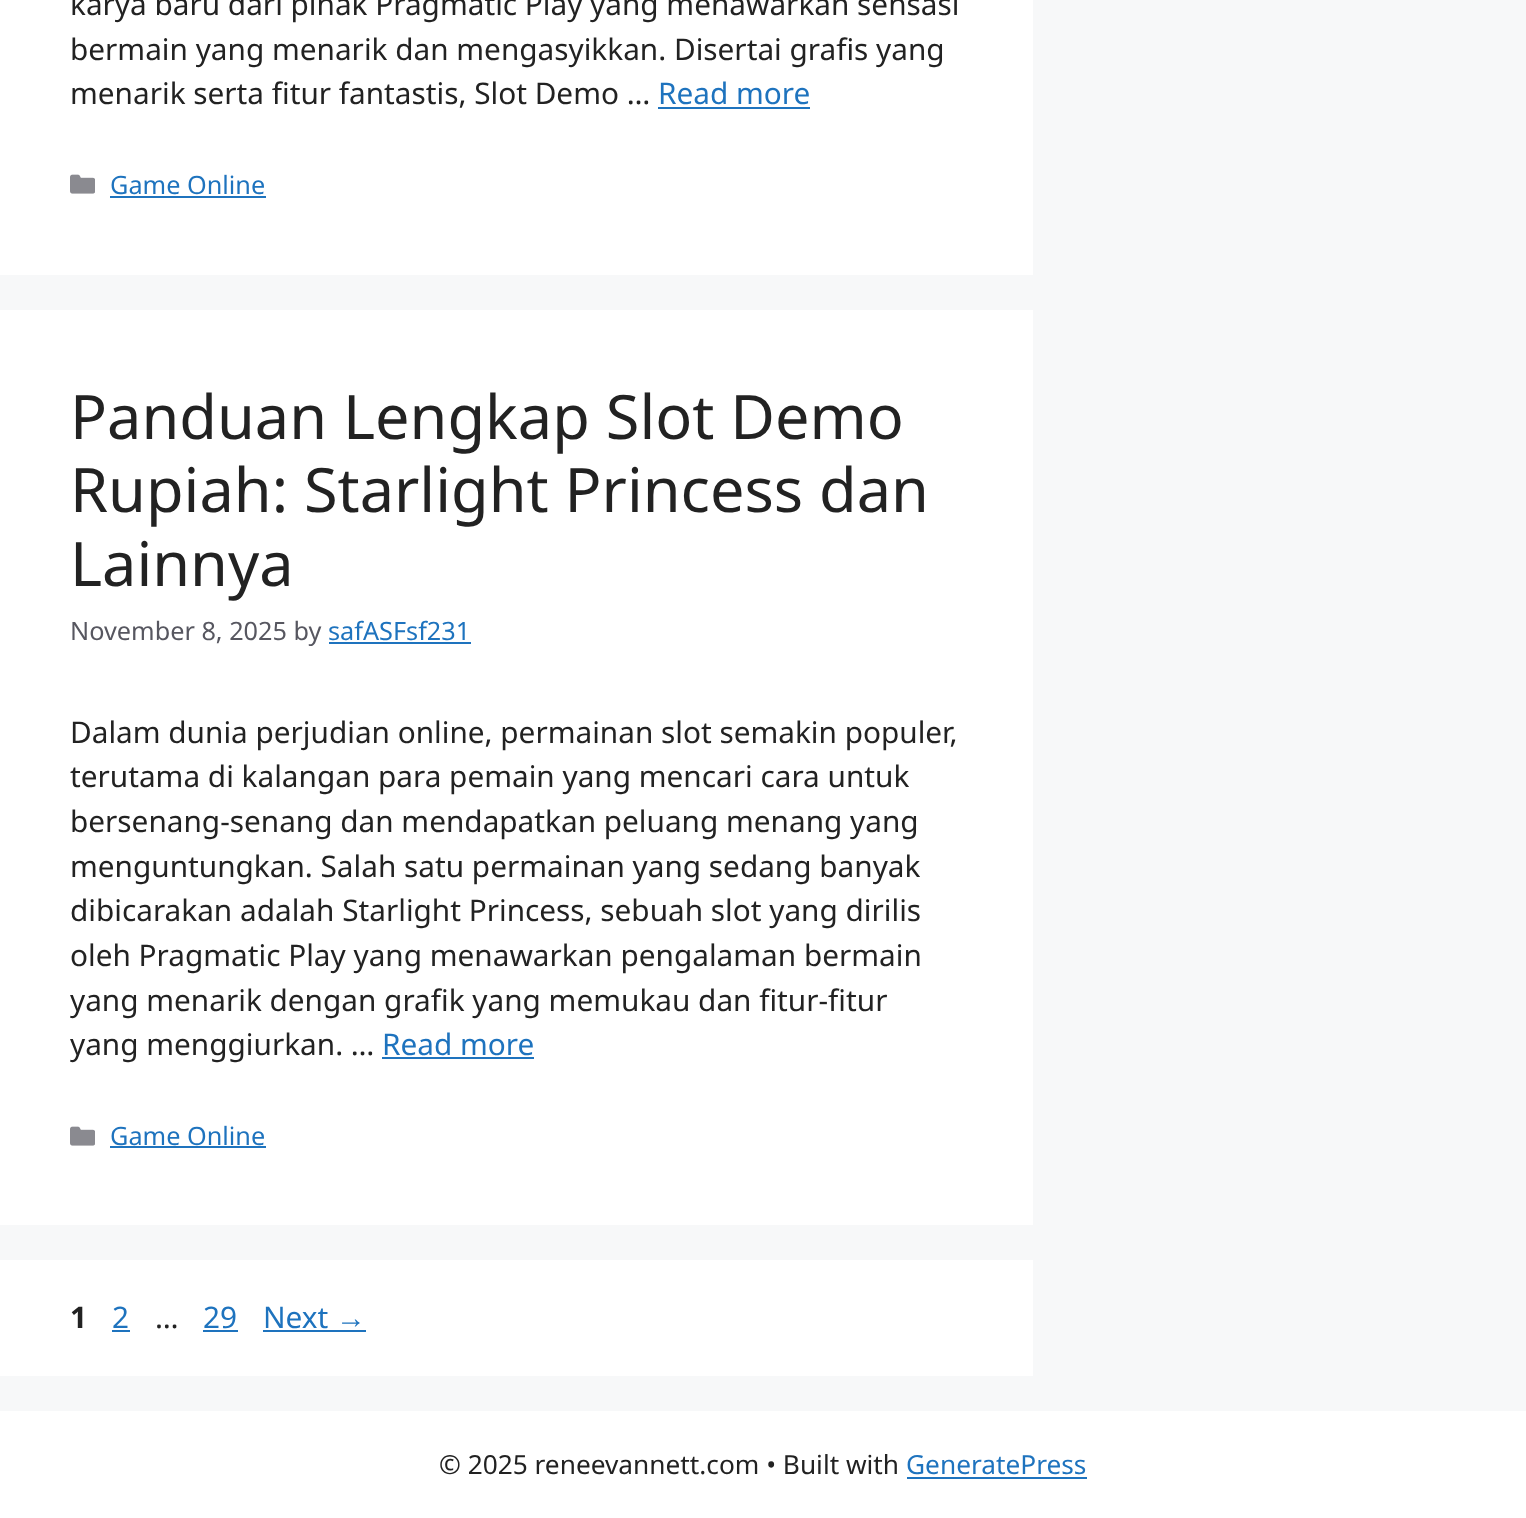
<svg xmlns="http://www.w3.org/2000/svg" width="1526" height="1518">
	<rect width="100%" height="100%" fill="#F7F8F9" />
	<rect x="0" y="0" width="1033" height="275" fill="#FFFFFF" />
	<g font-family="Noto Sans" font-size="29.75" fill="#222222">
		<text x="70" y="15">karya baru dari pihak Pragmatic Play yang menawarkan sensasi</text>
		<text x="70" y="60">bermain yang menarik dan mengasyikkan. Disertai grafis yang</text>
		<text x="70" y="104">menarik serta fitur fantastis, Slot Demo …</text>
	</g>
	<text x="658" y="104" font-family="Noto Sans" font-size="29.75" fill="#1E73BE">Read more</text>
	<rect x="658" y="107" width="152" height="2" fill="#1E73BE" />
	<image x="70" y="174" width="25" height="20" href="assets/img1.png" />
	<text x="110" y="194" font-family="Noto Sans" font-size="25.25" fill="#1E73BE">Game Online</text>
	<rect x="110" y="196" width="156" height="2" fill="#1E73BE" />
	<rect x="0" y="310" width="1033" height="915" fill="#FFFFFF" />
	<g font-family="Noto Sans" font-size="61.25" fill="#222222">
		<text x="70" y="439">Panduan Lengkap Slot Demo</text>
		<text x="70" y="512">Rupiah: Starlight Princess dan</text>
		<text x="70" y="586">Lainnya</text>
	</g>
	<text x="70" y="640" font-family="Noto Sans" font-size="25.25" fill="#575760">November 8, 2025 by</text>
	<text x="328" y="640" font-family="Noto Sans" font-size="25.25" fill="#1E73BE">safASFsf231</text>
	<rect x="329" y="642" width="142" height="2" fill="#1E73BE" />
	<g font-family="Noto Sans" font-size="29.75" fill="#222222">
		<text x="70" y="743">Dalam dunia perjudian online, permainan slot semakin populer,</text>
		<text x="70" y="787">terutama di kalangan para pemain yang mencari cara untuk</text>
		<text x="70" y="832">bersenang-senang dan mendapatkan peluang menang yang</text>
		<text x="70" y="877">menguntungkan. Salah satu permainan yang sedang banyak</text>
		<text x="70" y="921">dibicarakan adalah Starlight Princess, sebuah slot yang dirilis</text>
		<text x="70" y="966">oleh Pragmatic Play yang menawarkan pengalaman bermain</text>
		<text x="70" y="1011">yang menarik dengan grafik yang memukau dan fitur-fitur</text>
		<text x="70" y="1055">yang menggiurkan. …</text>
	</g>
	<text x="382" y="1055" font-family="Noto Sans" font-size="29.75" fill="#1E73BE">Read more</text>
	<rect x="382" y="1057" width="152" height="2" fill="#1E73BE" />
	<image x="70" y="1126" width="25" height="20" href="assets/img1.png" />
	<text x="110" y="1145" font-family="Noto Sans" font-size="25.25" fill="#1E73BE">Game Online</text>
	<rect x="110" y="1146" width="156" height="2" fill="#1E73BE" />
	<rect x="0" y="1260" width="1033" height="116" fill="#FFFFFF" />
	<text x="70" y="1328" font-family="Noto Sans" font-size="29.75" font-weight="700" fill="#222222">1</text>
	<text x="112" y="1328" font-family="Noto Sans" font-size="29.75" fill="#1E73BE">2</text>
	<rect x="112" y="1330" width="18" height="2" fill="#1E73BE" />
	<text x="155" y="1328" font-family="Noto Sans" font-size="29.75" fill="#222222">…</text>
	<text x="203" y="1328" font-family="Noto Sans" font-size="29.75" fill="#1E73BE">29</text>
	<rect x="203" y="1330" width="35" height="2" fill="#1E73BE" />
	<text x="263" y="1328" font-family="Noto Sans" font-size="29.75" fill="#1E73BE">Next</text>
	<text x="336" y="1328" font-family="Liberation Sans" font-size="29.75" fill="#1E73BE">→</text>
	<rect x="263" y="1330" width="103" height="2" fill="#1E73BE" />
	<rect x="0" y="1411" width="1526" height="107" fill="#FFFFFF" />
	<text x="439" y="1474" font-family="Noto Sans" font-size="26.25" fill="#222222">© 2025 reneevannett.com • Built with</text>
	<text x="906" y="1474" font-family="Noto Sans" font-size="26.25" fill="#1E73BE">GeneratePress</text>
	<rect x="907" y="1477" width="180" height="2" fill="#1E73BE" />
</svg>
